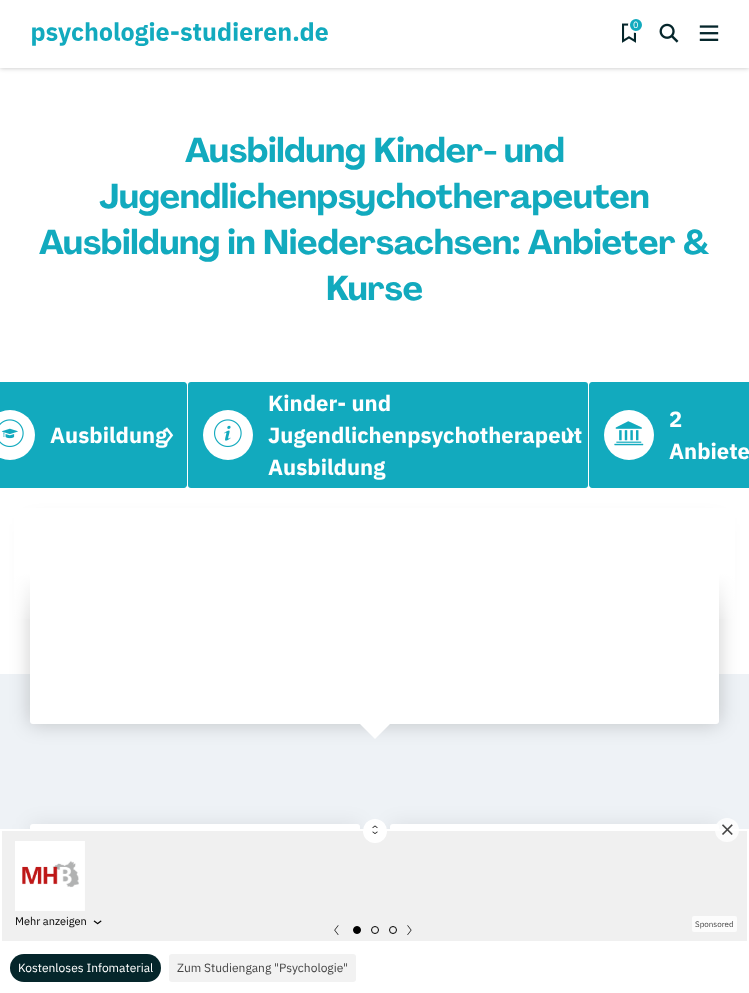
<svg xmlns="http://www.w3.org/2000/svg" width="749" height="993">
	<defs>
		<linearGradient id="g1" gradientUnits="userSpaceOnUse" x1="375" y1="624" x2="375" y2="574"><stop offset="0" stop-color="#FFFFFF" stop-opacity="0" /><stop offset="1" stop-color="#FFFFFF" /></linearGradient>
	</defs>
	<rect width="100%" height="100%" fill="#EEF2F6" />
	<rect x="0" y="68" width="749" height="606" fill="#FFFFFF" />
	<rect x="0" y="0" width="749" height="68" fill="#000000" fill-opacity="0.25" filter="blur(2.5px)" />
	<rect x="0" y="0" width="749" height="68" fill="#FFFFFF" />
	<image x="32" y="22" width="296" height="24" href="assets/img1.png" />
	<image x="622" y="23" width="14" height="20" href="assets/img2.png" />
	<circle cx="636" cy="25" r="7" fill="#12AABE" stroke="#FFFFFF" stroke-width="2" />
	<text x="633" y="28" font-family="IBM Plex Sans" font-size="9" letter-spacing="-1" fill="#FFFFFF">0</text>
	<image x="659" y="23" width="20" height="20" href="assets/img3.png" />
	<image x="699" y="25" width="20" height="16" href="assets/img4.png" />
	<g font-family="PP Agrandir" font-size="34" font-weight="700" fill="#12AABE">
		<text x="185" y="162">Ausbildung Kinder- und</text>
		<text x="99" y="208">Jugendlichenpsychotherapeuten</text>
		<text x="39" y="254">Ausbildung in Niedersachsen: Anbieter &amp;</text>
		<text x="326" y="300">Kurse</text>
	</g>
	<path d="M0 382H184C185.5 382 187 383.5 187 385V485C187 486.5 185.5 488 184 488H0Z" fill="#12AABE" />
	<circle cx="10" cy="435" r="25" fill="#FFFFFF" />
	<image x="0" y="419" width="24" height="29" href="assets/img5.png" />
	<text x="50" y="443" font-family="IBM Plex Sans" font-size="22" font-weight="700" fill="#FFFFFF">Ausbildung</text>
	<image x="165" y="427" width="9" height="17" href="assets/img6.png" />
	<rect x="188" y="382" width="400" height="106" rx="3" fill="#12AABE" />
	<circle cx="228" cy="435" r="25" fill="#FFFFFF" />
	<image x="214" y="419" width="28" height="29" href="assets/img7.png" />
	<g font-family="IBM Plex Sans" font-size="22" font-weight="700" fill="#FFFFFF">
		<text x="268" y="411">Kinder- und</text>
		<text x="268" y="443">Jugendlichenpsychotherapeut</text>
		<text x="268" y="475">Ausbildung</text>
	</g>
	<image x="566" y="427" width="9" height="17" href="assets/img8.png" />
	<path d="M592 382H749V488H592C590.5 488 589 486.5 589 485V385C589 383.5 590.5 382 592 382Z" fill="#12AABE" />
	<circle cx="629" cy="435" r="25" fill="#FFFFFF" />
	<image x="614" y="421" width="30" height="25" href="assets/img9.png" />
	<g font-family="IBM Plex Sans" font-size="22" font-weight="700" fill="#FFFFFF">
		<text x="669" y="427">2</text>
		<text x="669" y="459">Anbiete</text>
	</g>
	<rect x="30" y="524" width="689" height="200" rx="3" fill="#000000" fill-opacity="0.2" filter="blur(10px)" />
	<rect x="30" y="524" width="689" height="200" rx="3" fill="#FFFFFF" />
	<rect x="14" y="508" width="721" height="66" fill="#FFFFFF" />
	<rect x="14" y="574" width="721" height="45" fill="url(#g1)" />
	<path d="M360 724H390L375 739Z" fill="#FFFFFF" />
	<rect x="30" y="824" width="330" height="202" rx="3" fill="#000000" fill-opacity="0.08" filter="blur(10px)" />
	<rect x="30" y="824" width="330" height="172" rx="3" fill="#FFFFFF" />
	<rect x="390" y="824" width="329" height="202" rx="3" fill="#000000" fill-opacity="0.08" filter="blur(10px)" />
	<rect x="390" y="824" width="329" height="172" rx="3" fill="#FFFFFF" />
	<rect x="1" y="830" width="747" height="112" fill="#F0F0F0" stroke="#FFFFFF" stroke-width="2" />
	<image x="15" y="841" width="70" height="70" href="assets/img10.png" />
	<text x="15" y="925" font-family="IBM Plex Sans" font-size="11" fill="#000000">Mehr anzeigen</text>
	<image x="93" y="920" width="9" height="5" href="assets/img11.png" />
	<circle cx="375" cy="831" r="12" fill="#FFFFFF" />
	<image x="372" y="825" width="6" height="9" href="assets/img12.png" />
	<circle cx="727" cy="830" r="12" fill="#FFFFFF" fill-opacity="0.8" />
	<image x="722" y="824" width="11" height="11" href="assets/img13.png" />
	<image x="334" y="925" width="5" height="10" href="assets/img14.png" />
	<circle cx="357" cy="930" r="3.5" fill="#000000" stroke="#000000" />
	<circle cx="375" cy="930" r="3.5" fill="none" stroke="#000000" />
	<circle cx="393" cy="930" r="3.5" fill="none" stroke="#000000" />
	<image x="407" y="925" width="5" height="10" href="assets/img15.png" />
	<rect x="692" y="916" width="45" height="16" rx="2" fill="#FCFCFC" />
	<text x="695" y="927" font-family="IBM Plex Sans" font-size="8" fill="#454545">Sponsored</text>
	<rect x="0" y="943" width="749" height="50" fill="#FFFFFF" />
	<rect x="10" y="954" width="151" height="28" rx="14" fill="#05262B" />
	<text x="18" y="972" font-family="IBM Plex Sans" font-size="12" fill="#FFFFFF">Kostenloses Infomaterial</text>
	<rect x="169" y="954" width="187" height="28" rx="3" fill="#F2F2F2" />
	<text x="177" y="972" font-family="IBM Plex Sans" font-size="12" fill="#454545">Zum Studiengang "Psychologie"</text>
</svg>
